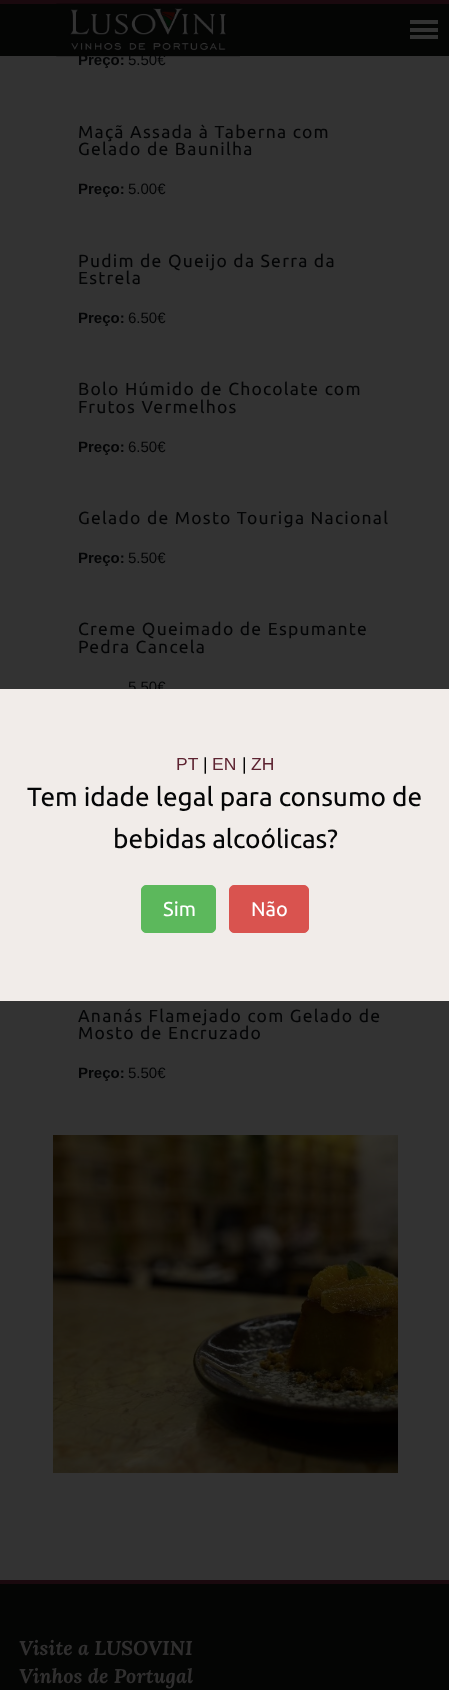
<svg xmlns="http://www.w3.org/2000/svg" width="449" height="1690">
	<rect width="100%" height="100%" fill="#333333" />
	<text x="78" y="65" font-family="Liberation Sans" font-size="15" font-weight="700" fill="#040506">Preço:</text>
	<text x="128" y="65" font-family="Liberation Sans" font-size="15" fill="#040506">5.50€</text>
	<rect x="0" y="4" width="449" height="52" fill="#040504" />
	<rect x="0" y="0" width="449" height="4" fill="#1A090E" />
	<image x="56" y="3" width="184" height="54" href="assets/img1.png" />
	<rect x="410" y="20" width="28" height="4" fill="#333333" />
	<rect x="410" y="28" width="28" height="4" fill="#333333" />
	<rect x="410" y="35" width="28" height="4" fill="#333333" />
	<g font-family="Ubuntu" font-size="17.5" letter-spacing="1.25" fill="#040506">
		<text x="78" y="138">Maçã Assada à Taberna com</text>
		<text x="78" y="155">Gelado de Baunilha</text>
	</g>
	<text x="78" y="194" font-family="Liberation Sans" font-size="15" font-weight="700" fill="#040506">Preço:</text>
	<text x="128" y="194" font-family="Liberation Sans" font-size="15" fill="#040506">5.00€</text>
	<g font-family="Ubuntu" font-size="17.5" letter-spacing="1.25" fill="#040506">
		<text x="78" y="267">Pudim de Queijo da Serra da</text>
		<text x="78" y="284">Estrela</text>
	</g>
	<text x="78" y="323" font-family="Liberation Sans" font-size="15" font-weight="700" fill="#040506">Preço:</text>
	<text x="128" y="323" font-family="Liberation Sans" font-size="15" fill="#040506">6.50€</text>
	<g font-family="Ubuntu" font-size="17.5" letter-spacing="1.25" fill="#040506">
		<text x="78" y="395">Bolo Húmido de Chocolate com</text>
		<text x="78" y="413">Frutos Vermelhos</text>
	</g>
	<text x="78" y="452" font-family="Liberation Sans" font-size="15" font-weight="700" fill="#040506">Preço:</text>
	<text x="128" y="452" font-family="Liberation Sans" font-size="15" fill="#040506">6.50€</text>
	<text x="78" y="524" font-family="Ubuntu" font-size="17.5" letter-spacing="1.25" fill="#040506">Gelado de Mosto Touriga Nacional</text>
	<text x="78" y="563" font-family="Liberation Sans" font-size="15" font-weight="700" fill="#040506">Preço:</text>
	<text x="128" y="563" font-family="Liberation Sans" font-size="15" fill="#040506">5.50€</text>
	<g font-family="Ubuntu" font-size="17.5" letter-spacing="1.25" fill="#040506">
		<text x="78" y="635">Creme Queimado de Espumante</text>
		<text x="78" y="653">Pedra Cancela</text>
	</g>
	<text x="128" y="692" font-family="Liberation Sans" font-size="15" fill="#040506">5.50€</text>
	<g font-family="Ubuntu" font-size="17.5" letter-spacing="1.25" fill="#040506">
		<text x="78" y="1022">Ananás Flamejado com Gelado de</text>
		<text x="78" y="1039">Mosto de Encruzado</text>
	</g>
	<text x="78" y="1078" font-family="Liberation Sans" font-size="15" font-weight="700" fill="#040506">Preço:</text>
	<text x="128" y="1078" font-family="Liberation Sans" font-size="15" fill="#040506">5.50€</text>
	<image x="53" y="1135" width="345" height="338" href="assets/img2.png" />
	<rect x="0" y="689" width="449" height="312" fill="#F1ECE9" />
	<text x="176" y="770" font-family="Liberation Sans" font-size="17.5" fill="#5D2331">PT</text>
	<text x="203" y="770" font-family="Liberation Sans" font-size="17.5" fill="#000000">|</text>
	<text x="212" y="770" font-family="Liberation Sans" font-size="17.5" fill="#5D2331">EN</text>
	<text x="242" y="770" font-family="Liberation Sans" font-size="17.5" fill="#000000">|</text>
	<text x="251" y="770" font-family="Liberation Sans" font-size="17.5" fill="#5D2331">ZH</text>
	<g font-family="Ubuntu" font-size="26.25" fill="#040506">
		<text x="27" y="806">Tem idade legal para consumo de</text>
		<text x="113" y="848">bebidas alcoólicas?</text>
	</g>
	<rect x="141.5" y="885.5" width="74" height="47" rx="4.5" fill="#5CB85C" stroke="#5CB85C" />
	<text x="163" y="916" font-family="Ubuntu" font-size="20" fill="#FFFFFF">Sim</text>
	<rect x="229.5" y="885.5" width="79" height="47" rx="4.5" fill="#D9534F" stroke="#D9534F" />
	<text x="251" y="916" font-family="Ubuntu" font-size="20" fill="#FFFFFF">Não</text>
	<rect x="0" y="1584" width="449" height="106" fill="#040504" />
	<rect x="0" y="1580" width="449" height="4" fill="#1A090E" />
	<g font-family="Lora" font-size="20" font-weight="700" font-style="italic" fill="#302F2F">
		<text x="19" y="1655">Visite a LUSOVINI</text>
		<text x="19" y="1683">Vinhos de Portugal</text>
	</g>
</svg>
